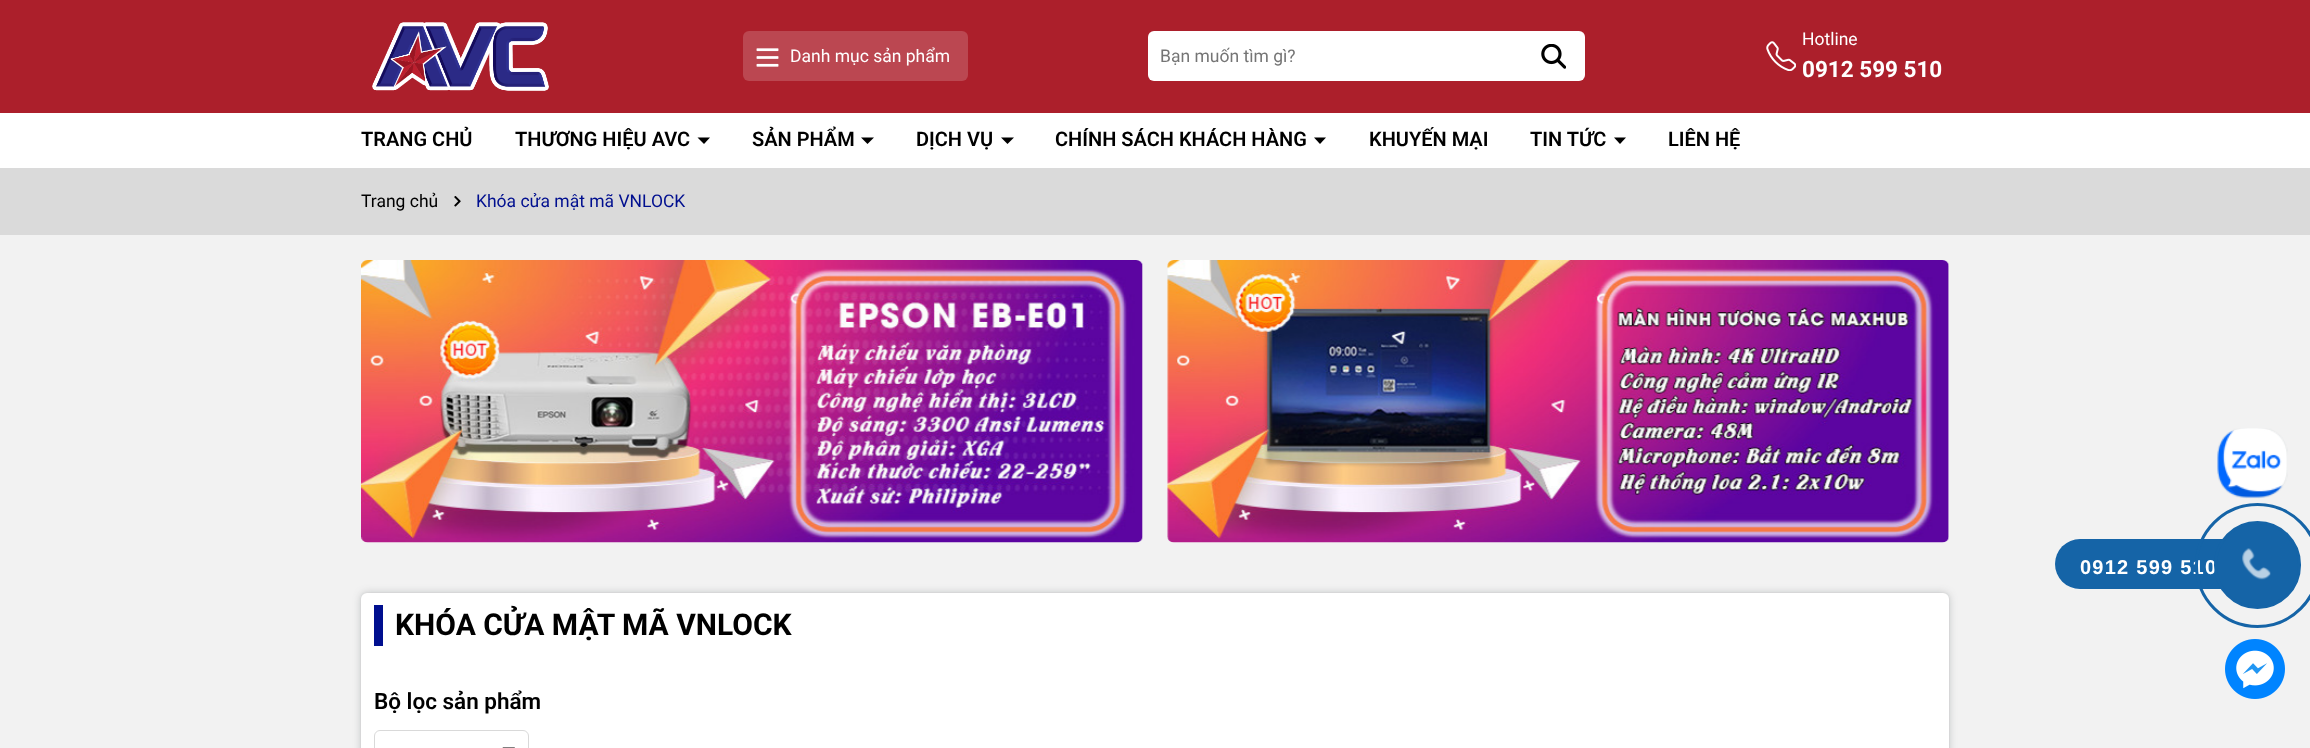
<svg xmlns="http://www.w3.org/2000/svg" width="2310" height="748">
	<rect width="100%" height="100%" fill="#F2F2F2" />
	<rect x="0" y="0" width="2310" height="113" fill="#AC1F2B" />
	<image x="372" y="22" width="177" height="69" href="assets/img1.png" />
	<rect x="743" y="31" width="225" height="50" rx="6" fill="#BB4751" />
	<image x="756" y="48" width="23" height="19" href="assets/img2.png" />
	<text x="790" y="62" font-family="Roboto" font-size="17.5" fill="#FFFFFF">Danh mục sản phẩm</text>
	<rect x="1148" y="31" width="437" height="50" rx="6" fill="#FFFFFF" />
	<text x="1160" y="62" font-family="Roboto" font-size="17.5" fill="#757575">Bạn muốn tìm gì?</text>
	<image x="1541" y="44" width="25" height="25" href="assets/img3.png" />
	<image x="1766" y="41" width="30" height="30" href="assets/img4.png" />
	<text x="1802" y="45" font-family="Roboto" font-size="17.5" fill="#FFFFFF">Hotline</text>
	<text x="1802" y="77" font-family="Roboto" font-size="22.5" font-weight="700" fill="#FFFFFF">0912 599 510</text>
	<rect x="0" y="113" width="2310" height="55" fill="#FFFFFF" />
	<g font-family="Roboto" font-size="20" font-weight="600" fill="#000000">
		<text x="361" y="146">TRANG CHỦ</text>
		<text x="515" y="146">THƯƠNG HIỆU AVC</text>
	</g>
	<path d="M697.5 137.5H710L704 144Z" fill="#000000" />
	<text x="752" y="146" font-family="Roboto" font-size="20" font-weight="600" fill="#000000">SẢN PHẨM</text>
	<path d="M861 137.5H874L867.5 144Z" fill="#000000" />
	<text x="916" y="146" font-family="Roboto" font-size="20" font-weight="600" fill="#000000">DỊCH VỤ</text>
	<path d="M1001 137.5H1014L1007.5 144Z" fill="#000000" />
	<text x="1055" y="146" font-family="Roboto" font-size="20" font-weight="600" fill="#000000">CHÍNH SÁCH KHÁCH HÀNG</text>
	<path d="M1314 137.5H1326L1320 144Z" fill="#000000" />
	<g font-family="Roboto" font-size="20" font-weight="600" fill="#000000">
		<text x="1369" y="146">KHUYẾN MẠI</text>
		<text x="1530" y="146">TIN TỨC</text>
	</g>
	<path d="M1614 137.5H1626L1620 144Z" fill="#000000" />
	<text x="1668" y="146" font-family="Roboto" font-size="20" font-weight="600" fill="#000000">LIÊN HỆ</text>
	<rect x="0" y="168" width="2310" height="67" fill="#DADADA" />
	<text x="361" y="207" font-family="Roboto" font-size="17.5" fill="#000000">Trang chủ</text>
	<image x="454" y="196" width="7" height="11" href="assets/img5.png" />
	<text x="476" y="207" font-family="Roboto" font-size="17.5" fill="#000F8F">Khóa cửa mật mã VNLOCK</text>
	<image x="361" y="260" width="782" height="283" href="assets/img6.png" />
	<image x="1167" y="260" width="782" height="283" href="assets/img7.png" />
	<rect x="361" y="593" width="1588" height="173" rx="6" fill="#3C4043" fill-opacity="0.25" filter="blur(4px)" />
	<rect x="361" y="593" width="1588" height="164" rx="6" fill="#3C4043" fill-opacity="0.1" filter="blur(1px)" />
	<rect x="361" y="593" width="1588" height="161" rx="6" fill="#FFFFFF" />
	<rect x="374" y="605" width="9" height="41" fill="#000F8F" />
	<text x="395" y="635" font-family="Roboto" font-size="30" font-weight="700" fill="#000000">KHÓA CỬA MẬT MÃ VNLOCK</text>
	<text x="374" y="709" font-family="Roboto" font-size="22.5" font-weight="600" fill="#000000">Bộ lọc sản phẩm</text>
	<rect x="374.5" y="730.5" width="154" height="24" rx="5.5" fill="none" stroke="#D9D9D9" />
	<path d="M502.5 747.5H515L509 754Z" fill="#000000" />
	<image x="2217" y="428" width="71" height="71" href="assets/img8.png" />
	<rect x="2055" y="539" width="231" height="50" rx="25" fill="#1564A7" />
	<text x="2080" y="574" font-family="Liberation Sans" font-size="20" font-weight="700" letter-spacing="1.25" fill="#FFFFFF">0912 599 510</text>
	<circle cx="2257.5" cy="565.5" r="61" fill="none" stroke="#1564A7" stroke-width="3" />
	<rect x="2215.5" y="522.5" width="84" height="85" rx="42" fill="#1564A7" stroke="#1564A7" stroke-width="3" />
	<image x="2242" y="548" width="29" height="32" href="assets/img9.png" />
	<image x="2225" y="639" width="60" height="60" href="assets/img10.png" />
</svg>
